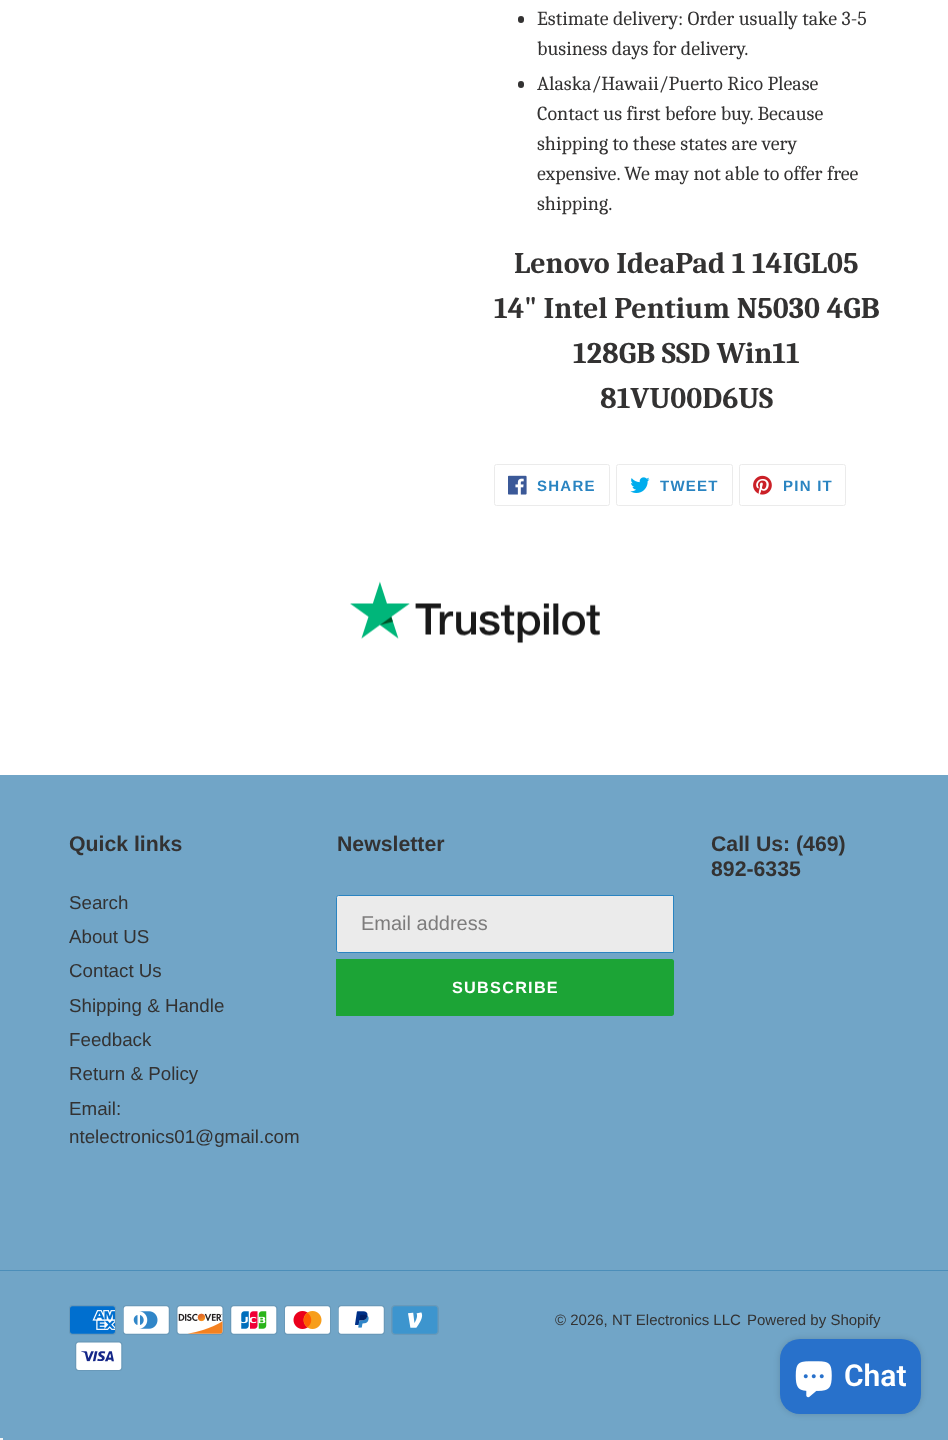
<svg xmlns="http://www.w3.org/2000/svg" width="948" height="1440">
	<rect width="100%" height="100%" fill="#FFFFFF" />
	<rect x="518" y="16" width="6" height="7" rx="3" fill="#333232" />
	<g font-family="Caladea" font-size="20" fill="#333232">
		<text x="537" y="25">Estimate delivery: Order usually take 3-5</text>
		<text x="537" y="55">business days for delivery.</text>
	</g>
	<rect x="518" y="81" width="6" height="7" rx="3" fill="#333232" />
	<g font-family="Caladea" font-size="20" fill="#333232">
		<text x="537" y="90">Alaska/Hawaii/Puerto Rico Please</text>
		<text x="537" y="120">Contact us first before buy. Because</text>
		<text x="537" y="150">shipping to these states are very</text>
		<text x="537" y="180">expensive. We may not able to offer free</text>
		<text x="537" y="210">shipping.</text>
	</g>
	<g font-family="Caladea" font-size="30" font-weight="700" fill="#333232">
		<text x="514" y="273">Lenovo IdeaPad 1 14IGL05</text>
		<text x="494" y="318">14" Intel Pentium N5030 4GB</text>
		<text x="573" y="363">128GB SSD Win11</text>
		<text x="600" y="408">81VU00D6US</text>
	</g>
	<rect x="494.5" y="464.5" width="115" height="41" rx="2" fill="none" stroke="#EBEBEB" />
	<image x="508" y="475" width="19" height="20" href="assets/img1.png" />
	<text x="537" y="491" font-family="Liberation Sans" font-size="15" font-weight="700" letter-spacing="1.25" fill="#2A84C1">SHARE</text>
	<rect x="616.5" y="464.5" width="116" height="41" rx="2" fill="none" stroke="#EBEBEB" />
	<image x="630" y="477" width="20" height="16" href="assets/img2.png" />
	<text x="660" y="491" font-family="Liberation Sans" font-size="15" font-weight="700" letter-spacing="1.25" fill="#2A84C1">TWEET</text>
	<rect x="739.5" y="464.5" width="106" height="41" rx="2" fill="none" stroke="#EBEBEB" />
	<image x="753" y="475" width="19" height="20" href="assets/img3.png" />
	<text x="783" y="491" font-family="Liberation Sans" font-size="15" font-weight="700" letter-spacing="1.25" fill="#2A84C1">PIN IT</text>
	<image x="350" y="581" width="250" height="63" href="assets/img4.png" />
	<rect x="0" y="775" width="948" height="665" fill="#71A5C7" />
	<text x="69" y="851" font-family="Liberation Sans" font-size="21.25" font-weight="700" fill="#333232">Quick links</text>
	<g font-family="Liberation Sans" font-size="18.75" fill="#333232">
		<text x="69" y="909">Search</text>
		<text x="69" y="943">About US</text>
		<text x="69" y="977">Contact Us</text>
		<text x="69" y="1012">Shipping &amp; Handle</text>
		<text x="69" y="1046">Feedback</text>
		<text x="69" y="1080">Return &amp; Policy</text>
		<text x="69" y="1115">Email:</text>
		<text x="69" y="1143">ntelectronics01@gmail.com</text>
	</g>
	<text x="337" y="851" font-family="Liberation Sans" font-size="21.25" font-weight="700" fill="#333232">Newsletter</text>
	<path d="M338.5 895.5H673.5V952.5H338.5C337.5 952.5 336.5 951.5 336.5 950.5V897.5C336.5 896.5 337.5 895.5 338.5 895.5Z" fill="#EBEBEB" stroke="#2A84C1" />
	<text x="361" y="930" font-family="Liberation Sans" font-size="20" fill="#7D7C7C">Email address</text>
	<path d="M336 959H671.5C673 959 674 960 674 961.5V1013.5C674 1015 673 1016 671.5 1016H336Z" fill="#1CA436" />
	<text x="452" y="993" font-family="Liberation Sans" font-size="16.25" font-weight="700" letter-spacing="1.25" fill="#FFFFFF">SUBSCRIBE</text>
	<g font-family="Liberation Sans" font-size="21.25" font-weight="700" fill="#333232">
		<text x="711" y="851">Call Us: (469)</text>
		<text x="711" y="876">892-6335</text>
	</g>
	<rect x="0" y="1270" width="948" height="1" fill="#4C8EB9" />
	<image x="69" y="1305" width="47" height="30" href="assets/img5.png" />
	<image x="123" y="1305" width="47" height="30" href="assets/img6.png" />
	<image x="176" y="1305" width="48" height="30" href="assets/img7.png" />
	<image x="230" y="1305" width="48" height="30" href="assets/img8.png" />
	<image x="284" y="1305" width="47" height="30" href="assets/img9.png" />
	<image x="338" y="1305" width="47" height="30" href="assets/img10.png" />
	<image x="391" y="1305" width="48" height="30" href="assets/img11.png" />
	<image x="75" y="1341" width="48" height="30" href="assets/img12.png" />
	<g font-family="Liberation Sans" font-size="15" fill="#333232">
		<text x="555" y="1325">© 2026, NT Electronics LLC</text>
		<text x="747" y="1325">Powered by Shopify</text>
	</g>
	<rect x="780" y="1339" width="141" height="75" rx="20" fill="#000000" fill-opacity="0.15" filter="blur(3px)" />
	<rect x="780" y="1339" width="141" height="75" rx="20" fill="#2871CB" />
	<image x="795" y="1361" width="37" height="37" href="assets/img13.png" />
	<text x="844" y="1386" font-family="Roboto" font-size="30" font-weight="600" fill="#FFFFFF">Chat</text>
	<rect x="0" y="1438" width="3" height="2" fill="#F5F5F5" />
</svg>
